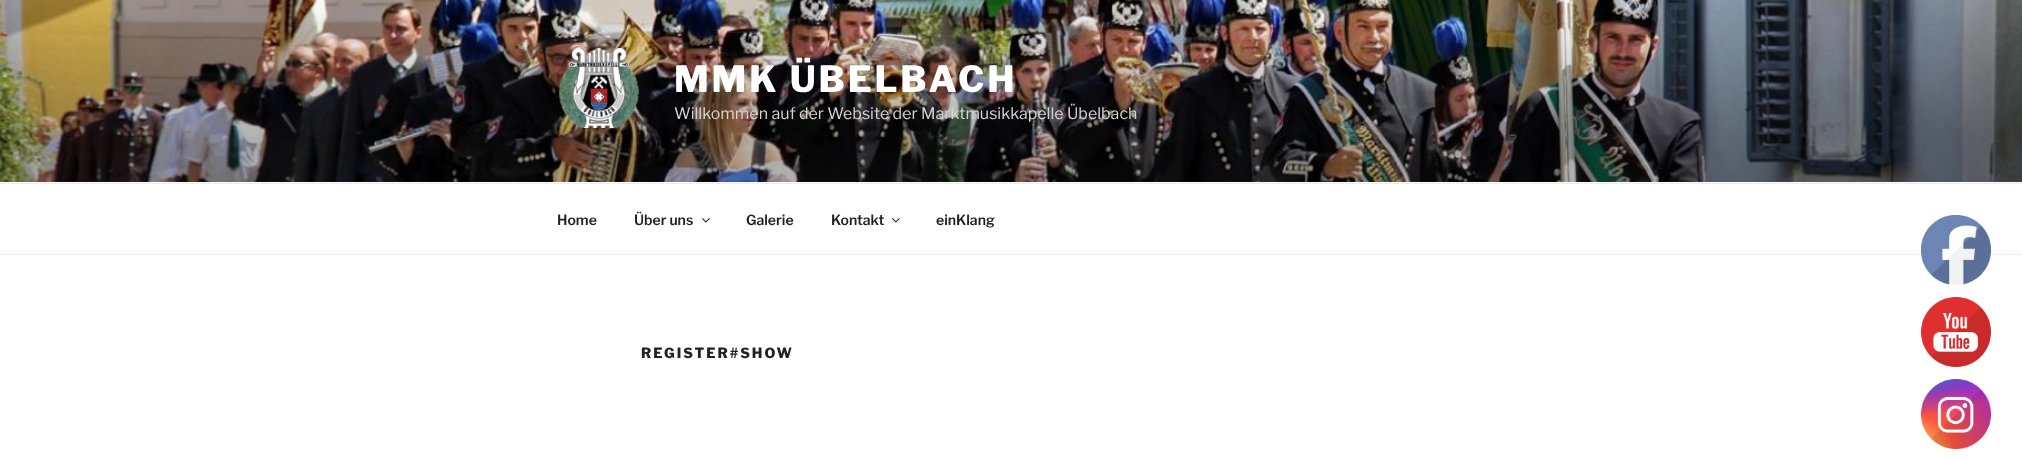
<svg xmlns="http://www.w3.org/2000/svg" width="2022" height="461">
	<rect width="100%" height="100%" fill="#FFFFFF" />
	<rect x="0" y="182" width="2022" height="1" fill="#FAFAFA" />
	<image x="0" y="0" width="2022" height="182" href="assets/img1.png" />
	<image x="559" y="48" width="80" height="80" href="assets/img2.png" />
	<text x="674" y="92" font-family="Libre Franklin" font-size="36" font-weight="800" letter-spacing="2.9" fill="#FFFFFF">MMK ÜBELBACH</text>
	<text x="674" y="119" font-family="Libre Franklin" font-size="16" fill="#D5D4D4">Willkommen auf der Website der Marktmusikkapelle Übelbach</text>
	<rect x="0" y="183" width="2022" height="1" fill="#EEEEEE" />
	<rect x="0" y="254" width="2022" height="1" fill="#EEEEEE" />
	<g font-family="Libre Franklin" font-size="14" font-weight="600" fill="#222222">
		<text x="557" y="225">Home</text>
		<text x="634" y="225">Über uns</text>
	</g>
	<image x="702" y="218" width="8" height="5" href="assets/img3.png" />
	<g font-family="Libre Franklin" font-size="14" font-weight="600" fill="#222222">
		<text x="746" y="225">Galerie</text>
		<text x="831" y="225">Kontakt</text>
	</g>
	<image x="892" y="218" width="8" height="5" href="assets/img3.png" />
	<text x="936" y="225" font-family="Libre Franklin" font-size="14" font-weight="600" fill="#222222">einKlang</text>
	<text x="641" y="358" font-family="Libre Franklin" font-size="14" font-weight="800" letter-spacing="2" fill="#222222">REGISTER#SHOW</text>
	<image x="1921" y="215" width="70" height="70" href="assets/img4.png" />
	<image x="1921" y="297" width="70" height="70" href="assets/img5.png" />
	<image x="1921" y="379" width="70" height="70" href="assets/img6.png" />
</svg>
